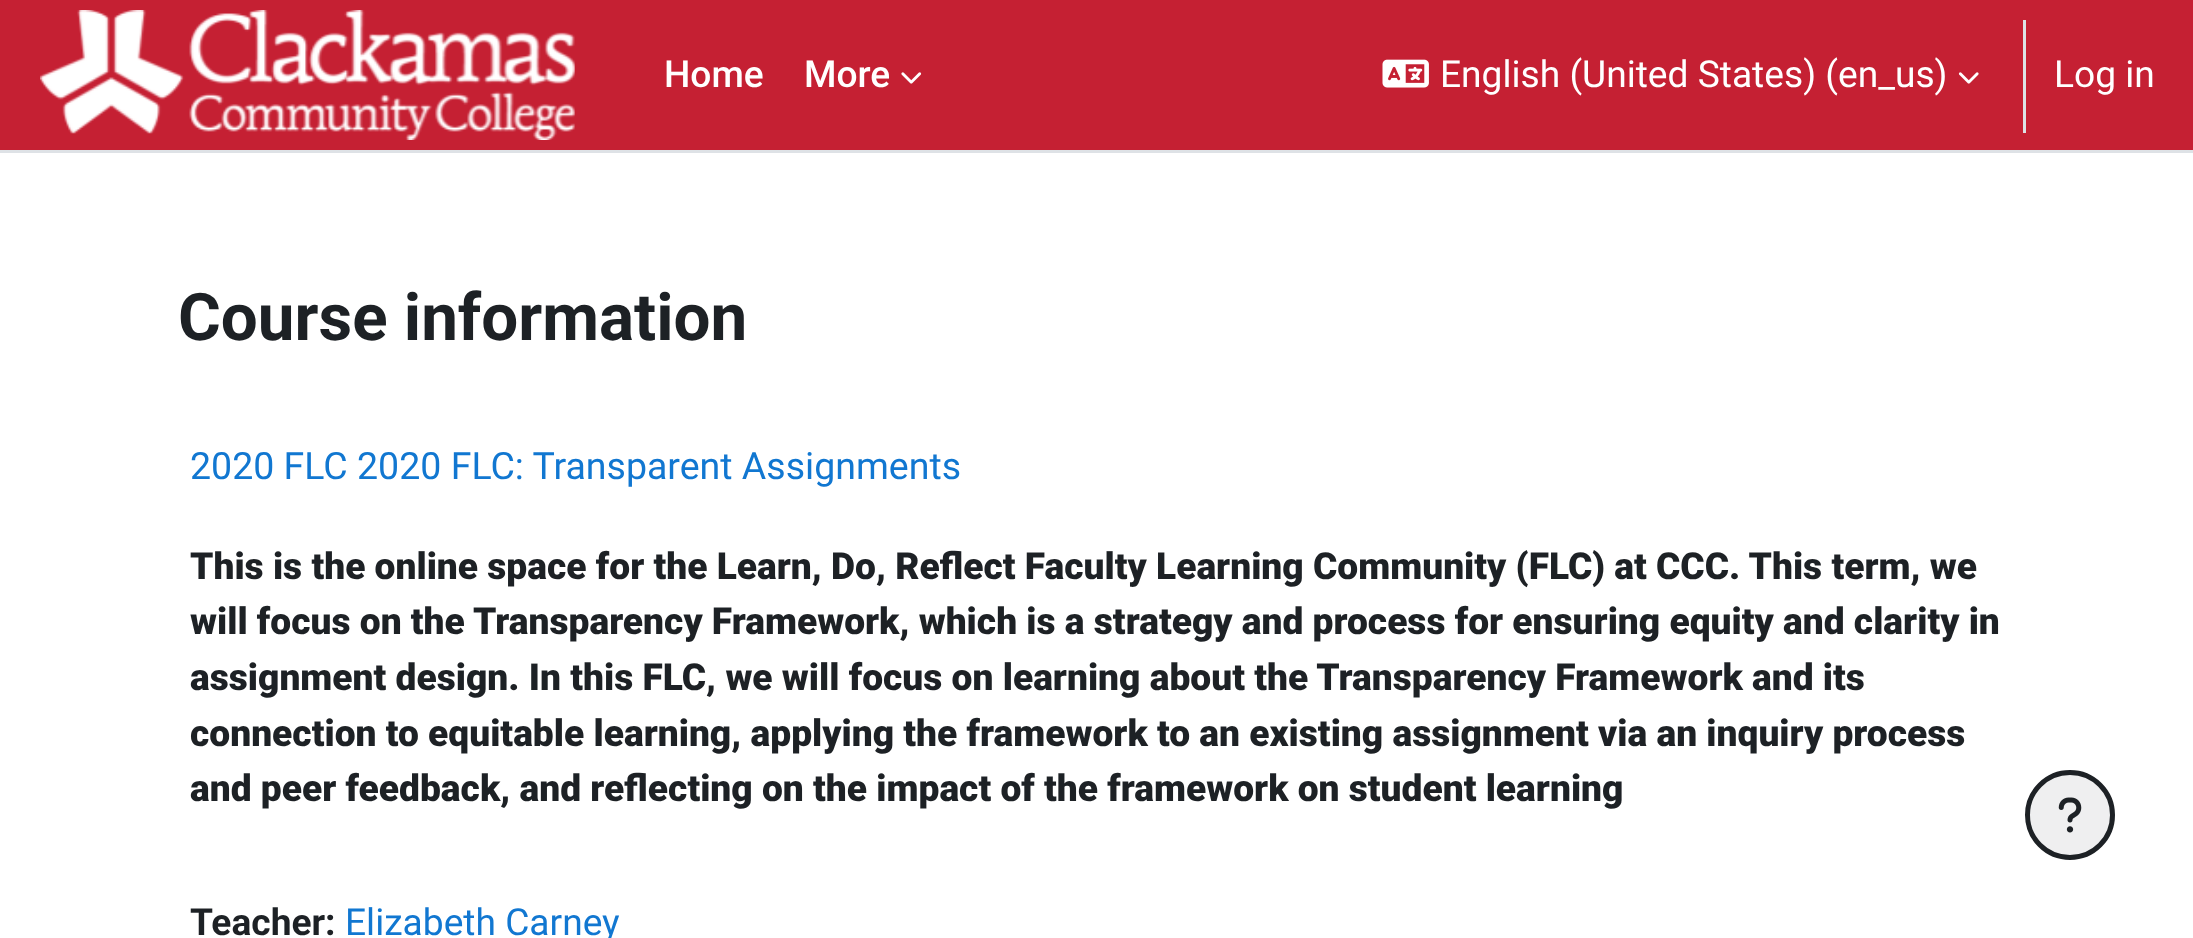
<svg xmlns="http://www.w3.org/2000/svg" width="2193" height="938">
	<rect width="100%" height="100%" fill="#FFFFFF" />
	<rect x="0" y="0" width="2193" height="150" fill="#C52033" />
	<rect x="0" y="150" width="2193" height="3" fill="#DEE2E6" />
	<image x="40" y="10" width="535" height="130" href="assets/img1.png" />
	<g font-family="Roboto" font-size="37.15" font-weight="500" fill="#FFFFFF">
		<text x="664" y="87">Home</text>
		<text x="804" y="87">More</text>
	</g>
	<image x="901" y="72" width="21" height="12" href="assets/img2.png" />
	<image x="1382" y="59" width="47" height="29" href="assets/img3.png" />
	<text x="1440" y="87" font-family="Roboto" font-size="37.15" fill="#FFFFFF">English (United States) (en_us)</text>
	<image x="1958" y="72" width="21" height="12" href="assets/img4.png" />
	<rect x="2023" y="20" width="3" height="113" fill="#DEE2E6" />
	<text x="2054" y="87" font-family="Roboto" font-size="37.15" fill="#FFFFFF">Log in</text>
	<text x="178" y="340" font-family="Roboto" font-size="65.5" font-weight="700" fill="#1D2125">Course information</text>
	<text x="190" y="479" font-family="Roboto" font-size="37.5" fill="#1177D1">2020 FLC 2020 FLC: Transparent Assignments</text>
	<g font-family="Roboto" font-size="37.15" font-weight="900" fill="#1D2125">
		<text x="190" y="579">This is the online space for the Learn, Do, Reflect Faculty Learning Community (FLC) at CCC. This term, we</text>
		<text x="190" y="634">will focus on the Transparency Framework, which is a strategy and process for ensuring equity and clarity in</text>
		<text x="190" y="690">assignment design. In this FLC, we will focus on learning about the Transparency Framework and its</text>
		<text x="190" y="746">connection to equitable learning, applying the framework to an existing assignment via an inquiry process</text>
		<text x="190" y="801">and peer feedback, and reflecting on the impact of the framework on student learning</text>
	</g>
	<text x="190" y="935" font-family="Roboto" font-size="37.15" font-weight="700" fill="#1D2125">Teacher:</text>
	<text x="345" y="935" font-family="Roboto" font-size="37.15" fill="#1177D1">Elizabeth Carney</text>
	<circle cx="2070" cy="815" r="42.5" fill="#EFEFF0" stroke="#1D2125" stroke-width="5" />
	<image x="2058" y="797" width="24" height="36" href="assets/img5.png" />
</svg>
